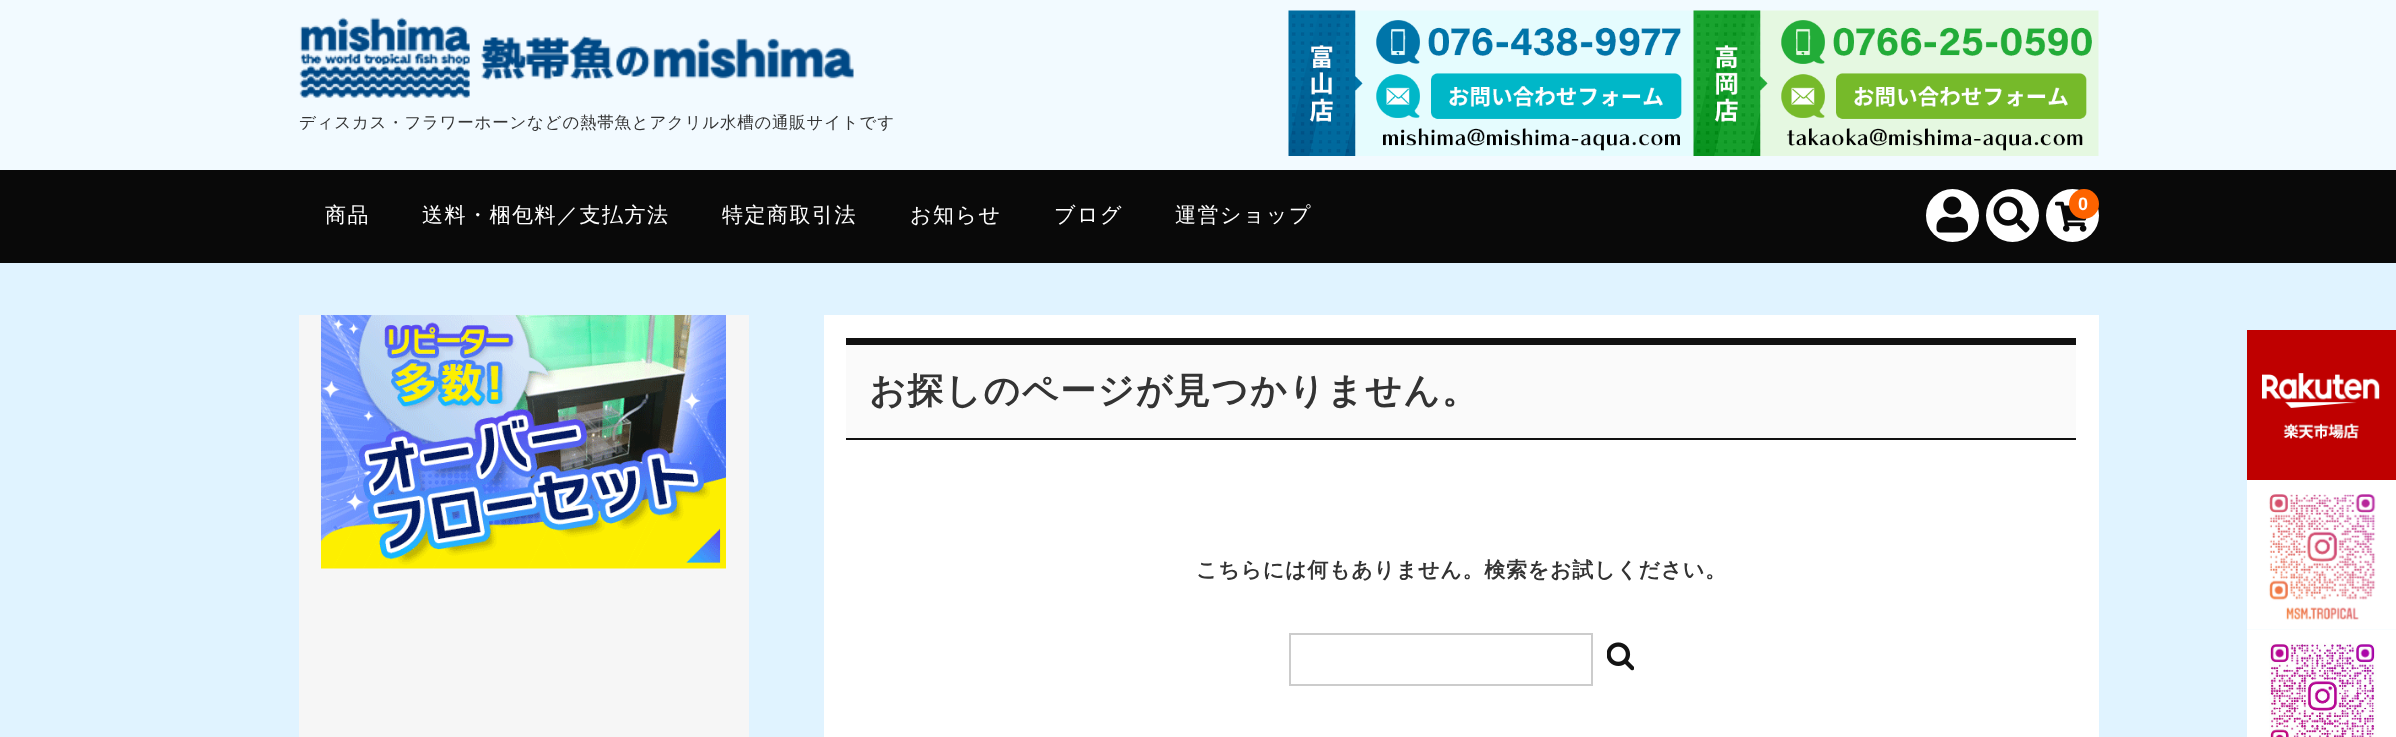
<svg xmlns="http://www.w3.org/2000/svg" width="2396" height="737">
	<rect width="100%" height="100%" fill="#E0F3FF" />
	<rect x="0" y="0" width="2396" height="170" fill="#F2FAFF" />
	<image x="299" y="17" width="555" height="81" href="assets/img1.png" />
	<image x="1288" y="10" width="406" height="146" href="assets/img2.png" />
	<image x="1693" y="10" width="406" height="146" href="assets/img3.png" />
	<text x="299" y="128" font-family="WenQuanYi Zen Hei" font-size="16.5" font-weight="500" letter-spacing="0.75" fill="#333333">ディスカス・フラワーホーンなどの熱帯魚とアクリル水槽の通販サイトです</text>
	<rect x="0" y="170" width="2396" height="93" fill="#090909" />
	<g font-family="WenQuanYi Zen Hei" font-size="21" font-weight="500" letter-spacing="1.5" fill="#FFFFFF">
		<text x="325" y="222">商品</text>
		<text x="422" y="222">送料・梱包料／支払方法</text>
		<text x="722" y="222">特定商取引法</text>
		<text x="910" y="222">お知らせ</text>
		<text x="1054" y="222">ブログ</text>
		<text x="1175" y="222">運営ショップ</text>
	</g>
	<circle cx="1952.5" cy="215.5" r="26.5" fill="#FFFFFF" />
	<image x="1936" y="196" width="32" height="37" href="assets/img4.png" />
	<circle cx="2012.5" cy="215.5" r="26.5" fill="#FFFFFF" />
	<image x="1993" y="196" width="37" height="37" href="assets/img5.png" />
	<circle cx="2072.5" cy="215.5" r="26.5" fill="#FFFFFF" />
	<image x="2055" y="201" width="32" height="31" href="assets/img6.png" />
	<circle cx="2084" cy="204" r="15" fill="#FD6300" />
	<text x="2078" y="210" font-family="Liberation Sans" font-size="18" font-weight="700" letter-spacing="1.5" fill="#FFFFFF">0</text>
	<rect x="299" y="315" width="450" height="422" fill="#F6F6F6" />
	<image x="321" y="315" width="405" height="254" href="assets/img7.png" />
	<rect x="824" y="315" width="1275" height="422" fill="#FFFFFF" />
	<rect x="846" y="345" width="1230" height="93" fill="#FAFAFA" />
	<rect x="846" y="338" width="1230" height="7" fill="#111111" />
	<rect x="846" y="438" width="1230" height="2" fill="#111111" />
	<text x="869" y="403" font-family="WenQuanYi Zen Hei" font-size="36" font-weight="700" letter-spacing="1.5" fill="#333333">お探しのページが見つかりません。</text>
	<text x="1196" y="577" font-family="WenQuanYi Zen Hei" font-size="21" font-weight="700" letter-spacing="0.75" fill="#333333">こちらには何もありません。検索をお試しください。</text>
	<rect x="1290" y="634" width="302" height="51" fill="none" stroke="#CCCCCC" stroke-width="2" />
	<image x="1607" y="642" width="27" height="29" href="assets/img8.png" />
	<image x="2247" y="330" width="149" height="150" href="assets/img9.png" />
	<image x="2247" y="480" width="149" height="150" href="assets/img10.png" />
	<image x="2247" y="630" width="149" height="107" href="assets/img11.png" />
</svg>
